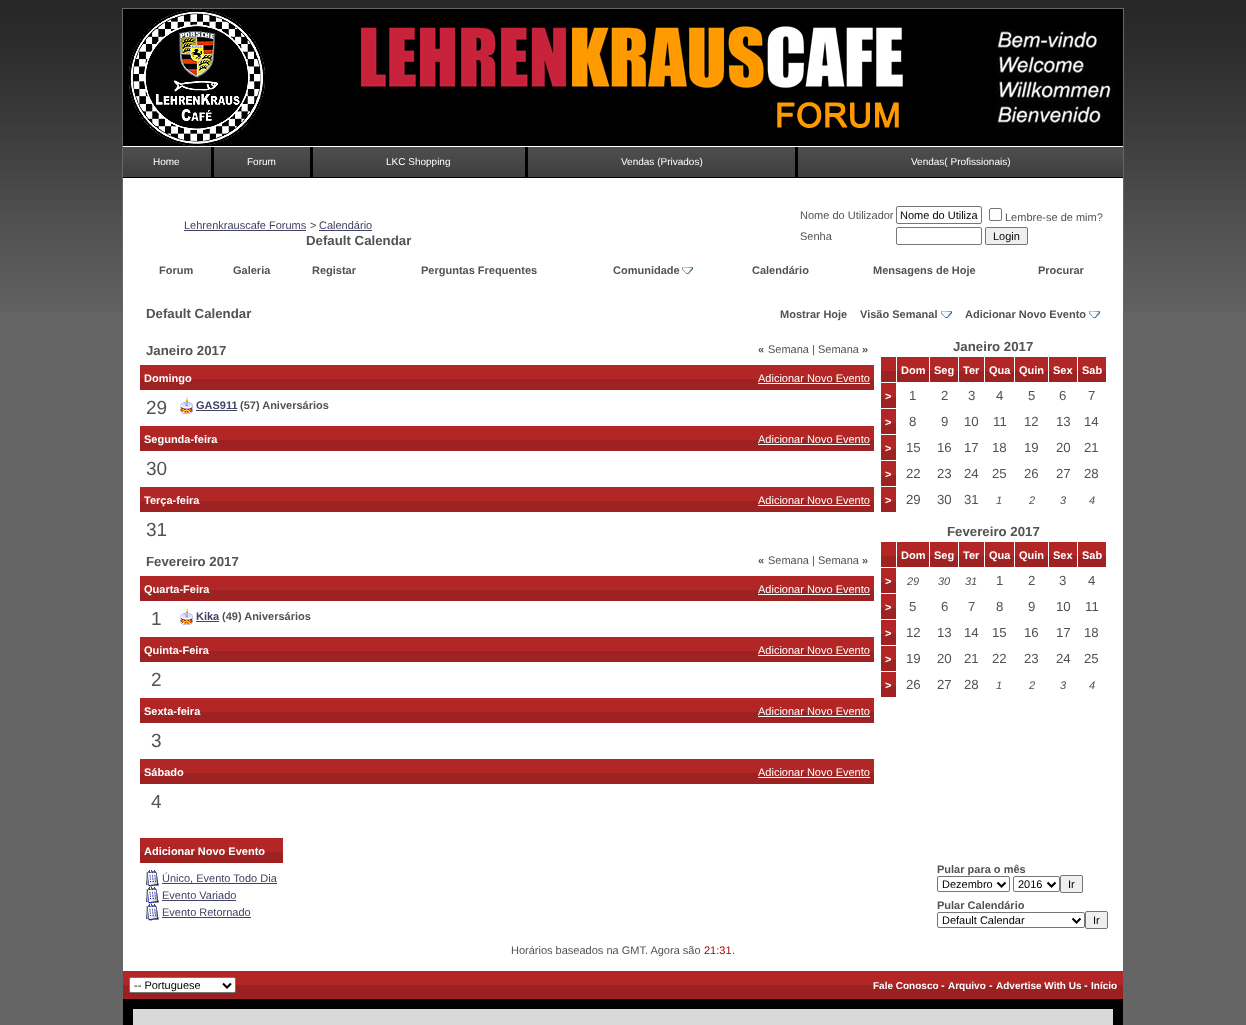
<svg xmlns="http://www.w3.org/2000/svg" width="1246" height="1025">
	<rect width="100%" height="100%" fill="#656565" />
	<image x="0" y="0" width="1246" height="312" href="assets/img1.png" />
	<rect x="122" y="8" width="1002" height="304" fill="#666666" />
	<rect x="123" y="9" width="1000" height="137" fill="#000000" />
	<image x="128" y="9" width="137" height="137" href="assets/img2.png" />
	<image x="360" y="21" width="543" height="110" href="assets/img3.png" />
	<image x="996" y="29" width="119" height="99" href="assets/img4.png" />
	<image x="123" y="146" width="1000" height="32" href="assets/img5.png" />
	<text x="153" y="165" font-family="Liberation Sans" font-size="10" fill="#FFFFFF">Home</text>
	<rect x="211" y="147" width="3" height="30" fill="#000000" />
	<text x="247" y="165" font-family="Liberation Sans" font-size="10" fill="#FFFFFF">Forum</text>
	<rect x="310" y="147" width="3" height="30" fill="#000000" />
	<text x="386" y="165" font-family="Liberation Sans" font-size="10" fill="#FFFFFF">LKC Shopping</text>
	<rect x="525" y="147" width="3" height="30" fill="#000000" />
	<text x="621" y="165" font-family="Liberation Sans" font-size="10" fill="#FFFFFF">Vendas (Privados)</text>
	<rect x="795" y="147" width="3" height="30" fill="#000000" />
	<text x="911" y="165" font-family="Liberation Sans" font-size="10" fill="#FFFFFF">Vendas( Profissionais)</text>
	<rect x="123" y="178" width="1000" height="793" fill="#FFFFFF" />
	<text x="184" y="229" font-family="Liberation Sans" font-size="11" fill="#424264">Lehrenkrauscafe Forums</text>
	<rect x="184" y="230" width="122" height="1" fill="#424264" />
	<text x="310" y="229" font-family="Liberation Sans" font-size="11" fill="#525252">&gt;</text>
	<text x="319" y="229" font-family="Liberation Sans" font-size="11" fill="#424264">Calendário</text>
	<rect x="319" y="230" width="53" height="1" fill="#424264" />
	<text x="306" y="245" font-family="Liberation Sans" font-size="13.25" font-weight="700" fill="#525252">Default Calendar</text>
	<text x="800" y="219" font-family="Liberation Sans" font-size="11" fill="#525252">Nome do Utilizador</text>
	<rect x="896.5" y="206.5" width="85" height="17" rx="1.5" fill="none" stroke="#767676" />
	<text x="900" y="219" font-family="Liberation Sans" font-size="11" fill="#000000">Nome do Utiliza</text>
	<rect x="989.5" y="208.5" width="12" height="12" rx="1.5" fill="none" stroke="#767676" />
	<g font-family="Liberation Sans" font-size="11" fill="#525252">
		<text x="1005" y="221">Lembre-se de mim?</text>
		<text x="800" y="240">Senha</text>
	</g>
	<rect x="896.5" y="227.5" width="85" height="17" rx="1.5" fill="none" stroke="#767676" />
	<rect x="985.5" y="227.5" width="42" height="17" rx="1.5" fill="#EFEFEF" stroke="#767676" />
	<text x="993" y="240" font-family="Liberation Sans" font-size="11" fill="#000000">Login</text>
	<g font-family="Liberation Sans" font-size="11" font-weight="700" fill="#525252">
		<text x="159" y="274">Forum</text>
		<text x="233" y="274">Galeria</text>
		<text x="312" y="274">Registar</text>
		<text x="421" y="274">Perguntas Frequentes</text>
		<text x="613" y="274">Comunidade</text>
	</g>
	<image x="682" y="267" width="11" height="7" href="assets/img6.png" />
	<g font-family="Liberation Sans" font-size="11" font-weight="700" fill="#525252">
		<text x="752" y="274">Calendário</text>
		<text x="873" y="274">Mensagens de Hoje</text>
		<text x="1038" y="274">Procurar</text>
	</g>
	<text x="146" y="318" font-family="Liberation Sans" font-size="13.25" font-weight="700" fill="#525252">Default Calendar</text>
	<g font-family="Liberation Sans" font-size="11" font-weight="700" fill="#525252">
		<text x="780" y="318">Mostrar Hoje</text>
		<text x="860" y="318">Visão Semanal</text>
	</g>
	<image x="941" y="311" width="11" height="7" href="assets/img6.png" />
	<text x="965" y="318" font-family="Liberation Sans" font-size="11" font-weight="700" fill="#525252">Adicionar Novo Evento</text>
	<image x="1089" y="311" width="11" height="7" href="assets/img6.png" />
	<text x="146" y="355" font-family="Liberation Sans" font-size="13.25" font-weight="700" fill="#525252">Janeiro 2017</text>
	<text x="758" y="353" font-family="Liberation Sans" font-size="11" font-weight="700" fill="#525252">«</text>
	<text x="768" y="353" font-family="Liberation Sans" font-size="11" fill="#525252">Semana | Semana</text>
	<text x="862" y="353" font-family="Liberation Sans" font-size="11" font-weight="700" fill="#525252">»</text>
	<image x="140" y="365" width="734" height="25" href="assets/img7.png" />
	<text x="144" y="382" font-family="Liberation Sans" font-size="11" font-weight="700" fill="#FFFFFF">Domingo</text>
	<text x="758" y="382" font-family="Liberation Sans" font-size="11" fill="#FFFFFF">Adicionar Novo Evento</text>
	<rect x="758" y="383" width="112" height="1" fill="#FFFFFF" />
	<text x="146" y="414" font-family="Liberation Sans" font-size="19" fill="#525252">29</text>
	<image x="180" y="397" width="13" height="17" href="assets/img8.png" />
	<text x="196" y="409" font-family="Liberation Sans" font-size="11" font-weight="700" fill="#424264">GAS911</text>
	<rect x="196" y="410" width="41" height="1" fill="#424264" />
	<text x="240" y="409" font-family="Liberation Sans" font-size="11" font-weight="700" fill="#525252">(57) Aniversários</text>
	<image x="140" y="426" width="734" height="25" href="assets/img7.png" />
	<text x="144" y="443" font-family="Liberation Sans" font-size="11" font-weight="700" fill="#FFFFFF">Segunda-feira</text>
	<text x="758" y="443" font-family="Liberation Sans" font-size="11" fill="#FFFFFF">Adicionar Novo Evento</text>
	<rect x="758" y="444" width="112" height="1" fill="#FFFFFF" />
	<text x="146" y="475" font-family="Liberation Sans" font-size="19" fill="#525252">30</text>
	<image x="140" y="487" width="734" height="25" href="assets/img7.png" />
	<text x="144" y="504" font-family="Liberation Sans" font-size="11" font-weight="700" fill="#FFFFFF">Terça-feira</text>
	<text x="758" y="504" font-family="Liberation Sans" font-size="11" fill="#FFFFFF">Adicionar Novo Evento</text>
	<rect x="758" y="505" width="112" height="1" fill="#FFFFFF" />
	<text x="146" y="536" font-family="Liberation Sans" font-size="19" fill="#525252">31</text>
	<text x="146" y="566" font-family="Liberation Sans" font-size="13.25" font-weight="700" fill="#525252">Fevereiro 2017</text>
	<text x="758" y="564" font-family="Liberation Sans" font-size="11" font-weight="700" fill="#525252">«</text>
	<text x="768" y="564" font-family="Liberation Sans" font-size="11" fill="#525252">Semana | Semana</text>
	<text x="862" y="564" font-family="Liberation Sans" font-size="11" font-weight="700" fill="#525252">»</text>
	<image x="140" y="576" width="734" height="25" href="assets/img7.png" />
	<text x="144" y="593" font-family="Liberation Sans" font-size="11" font-weight="700" fill="#FFFFFF">Quarta-Feira</text>
	<text x="758" y="593" font-family="Liberation Sans" font-size="11" fill="#FFFFFF">Adicionar Novo Evento</text>
	<rect x="758" y="594" width="112" height="1" fill="#FFFFFF" />
	<text x="151" y="625" font-family="Liberation Sans" font-size="19" fill="#525252">1</text>
	<image x="180" y="608" width="13" height="17" href="assets/img8.png" />
	<text x="196" y="620" font-family="Liberation Sans" font-size="11" font-weight="700" fill="#424264">Kika</text>
	<rect x="196" y="621" width="23" height="1" fill="#424264" />
	<text x="222" y="620" font-family="Liberation Sans" font-size="11" font-weight="700" fill="#525252">(49) Aniversários</text>
	<image x="140" y="637" width="734" height="25" href="assets/img7.png" />
	<text x="144" y="654" font-family="Liberation Sans" font-size="11" font-weight="700" fill="#FFFFFF">Quinta-Feira</text>
	<text x="758" y="654" font-family="Liberation Sans" font-size="11" fill="#FFFFFF">Adicionar Novo Evento</text>
	<rect x="758" y="655" width="112" height="1" fill="#FFFFFF" />
	<text x="151" y="686" font-family="Liberation Sans" font-size="19" fill="#525252">2</text>
	<image x="140" y="698" width="734" height="25" href="assets/img7.png" />
	<text x="144" y="715" font-family="Liberation Sans" font-size="11" font-weight="700" fill="#FFFFFF">Sexta-feira</text>
	<text x="758" y="715" font-family="Liberation Sans" font-size="11" fill="#FFFFFF">Adicionar Novo Evento</text>
	<rect x="758" y="716" width="112" height="1" fill="#FFFFFF" />
	<text x="151" y="747" font-family="Liberation Sans" font-size="19" fill="#525252">3</text>
	<image x="140" y="759" width="734" height="25" href="assets/img7.png" />
	<text x="144" y="776" font-family="Liberation Sans" font-size="11" font-weight="700" fill="#FFFFFF">Sábado</text>
	<text x="758" y="776" font-family="Liberation Sans" font-size="11" fill="#FFFFFF">Adicionar Novo Evento</text>
	<rect x="758" y="777" width="112" height="1" fill="#FFFFFF" />
	<text x="151" y="808" font-family="Liberation Sans" font-size="19" fill="#525252">4</text>
	<text x="953" y="351" font-family="Liberation Sans" font-size="13.25" font-weight="700" fill="#525252">Janeiro 2017</text>
	<image x="881" y="357" width="15" height="25" href="assets/img9.png" />
	<image x="897" y="357" width="32" height="25" href="assets/img10.png" />
	<text x="901" y="374" font-family="Liberation Sans" font-size="11" font-weight="700" fill="#FFFFFF">Dom</text>
	<image x="930" y="357" width="28" height="25" href="assets/img11.png" />
	<text x="934" y="374" font-family="Liberation Sans" font-size="11" font-weight="700" fill="#FFFFFF">Seg</text>
	<image x="959" y="357" width="25" height="25" href="assets/img12.png" />
	<text x="963" y="374" font-family="Liberation Sans" font-size="11" font-weight="700" fill="#FFFFFF">Ter</text>
	<image x="985" y="357" width="29" height="25" href="assets/img13.png" />
	<text x="989" y="374" font-family="Liberation Sans" font-size="11" font-weight="700" fill="#FFFFFF">Qua</text>
	<image x="1015" y="357" width="33" height="25" href="assets/img14.png" />
	<text x="1019" y="374" font-family="Liberation Sans" font-size="11" font-weight="700" fill="#FFFFFF">Quin</text>
	<image x="1049" y="357" width="28" height="25" href="assets/img11.png" />
	<text x="1053" y="374" font-family="Liberation Sans" font-size="11" font-weight="700" fill="#FFFFFF">Sex</text>
	<image x="1078" y="357" width="28" height="25" href="assets/img11.png" />
	<text x="1082" y="374" font-family="Liberation Sans" font-size="11" font-weight="700" fill="#FFFFFF">Sab</text>
	<image x="881" y="383" width="15" height="25" href="assets/img9.png" />
	<text x="885" y="400" font-family="Liberation Sans" font-size="11" font-weight="700" fill="#FFFFFF">&gt;</text>
	<g font-family="Liberation Sans" font-size="13.25" fill="#525252">
		<text x="909" y="400">1</text>
		<text x="941" y="400">2</text>
		<text x="968" y="400">3</text>
		<text x="996" y="400">4</text>
		<text x="1028" y="400">5</text>
		<text x="1059" y="400">6</text>
		<text x="1088" y="400">7</text>
	</g>
	<image x="881" y="409" width="15" height="25" href="assets/img9.png" />
	<text x="885" y="426" font-family="Liberation Sans" font-size="11" font-weight="700" fill="#FFFFFF">&gt;</text>
	<g font-family="Liberation Sans" font-size="13.25" fill="#525252">
		<text x="909" y="426">8</text>
		<text x="941" y="426">9</text>
		<text x="964" y="426">10</text>
		<text x="993" y="426">11</text>
		<text x="1024" y="426">12</text>
		<text x="1056" y="426">13</text>
		<text x="1084" y="426">14</text>
	</g>
	<image x="881" y="435" width="15" height="25" href="assets/img9.png" />
	<text x="885" y="452" font-family="Liberation Sans" font-size="11" font-weight="700" fill="#FFFFFF">&gt;</text>
	<g font-family="Liberation Sans" font-size="13.25" fill="#525252">
		<text x="906" y="452">15</text>
		<text x="937" y="452">16</text>
		<text x="964" y="452">17</text>
		<text x="992" y="452">18</text>
		<text x="1024" y="452">19</text>
		<text x="1056" y="452">20</text>
		<text x="1084" y="452">21</text>
	</g>
	<image x="881" y="461" width="15" height="25" href="assets/img9.png" />
	<text x="885" y="478" font-family="Liberation Sans" font-size="11" font-weight="700" fill="#FFFFFF">&gt;</text>
	<g font-family="Liberation Sans" font-size="13.25" fill="#525252">
		<text x="906" y="478">22</text>
		<text x="937" y="478">23</text>
		<text x="964" y="478">24</text>
		<text x="992" y="478">25</text>
		<text x="1024" y="478">26</text>
		<text x="1056" y="478">27</text>
		<text x="1084" y="478">28</text>
	</g>
	<image x="881" y="487" width="15" height="25" href="assets/img9.png" />
	<text x="885" y="504" font-family="Liberation Sans" font-size="11" font-weight="700" fill="#FFFFFF">&gt;</text>
	<g font-family="Liberation Sans" font-size="13.25" fill="#525252">
		<text x="906" y="504">29</text>
		<text x="937" y="504">30</text>
		<text x="964" y="504">31</text>
	</g>
	<g font-family="Liberation Sans" font-size="11" font-style="italic" fill="#525252">
		<text x="996" y="504">1</text>
		<text x="1029" y="504">2</text>
		<text x="1060" y="504">3</text>
		<text x="1089" y="504">4</text>
	</g>
	<text x="947" y="536" font-family="Liberation Sans" font-size="13.25" font-weight="700" fill="#525252">Fevereiro 2017</text>
	<image x="881" y="542" width="15" height="25" href="assets/img9.png" />
	<image x="897" y="542" width="32" height="25" href="assets/img10.png" />
	<text x="901" y="559" font-family="Liberation Sans" font-size="11" font-weight="700" fill="#FFFFFF">Dom</text>
	<image x="930" y="542" width="28" height="25" href="assets/img11.png" />
	<text x="934" y="559" font-family="Liberation Sans" font-size="11" font-weight="700" fill="#FFFFFF">Seg</text>
	<image x="959" y="542" width="25" height="25" href="assets/img12.png" />
	<text x="963" y="559" font-family="Liberation Sans" font-size="11" font-weight="700" fill="#FFFFFF">Ter</text>
	<image x="985" y="542" width="29" height="25" href="assets/img13.png" />
	<text x="989" y="559" font-family="Liberation Sans" font-size="11" font-weight="700" fill="#FFFFFF">Qua</text>
	<image x="1015" y="542" width="33" height="25" href="assets/img14.png" />
	<text x="1019" y="559" font-family="Liberation Sans" font-size="11" font-weight="700" fill="#FFFFFF">Quin</text>
	<image x="1049" y="542" width="28" height="25" href="assets/img11.png" />
	<text x="1053" y="559" font-family="Liberation Sans" font-size="11" font-weight="700" fill="#FFFFFF">Sex</text>
	<image x="1078" y="542" width="28" height="25" href="assets/img11.png" />
	<text x="1082" y="559" font-family="Liberation Sans" font-size="11" font-weight="700" fill="#FFFFFF">Sab</text>
	<image x="881" y="568" width="15" height="25" href="assets/img9.png" />
	<text x="885" y="585" font-family="Liberation Sans" font-size="11" font-weight="700" fill="#FFFFFF">&gt;</text>
	<g font-family="Liberation Sans" font-size="11" font-style="italic" fill="#525252">
		<text x="907" y="585">29</text>
		<text x="938" y="585">30</text>
		<text x="965" y="585">31</text>
	</g>
	<g font-family="Liberation Sans" font-size="13.25" fill="#525252">
		<text x="996" y="585">1</text>
		<text x="1028" y="585">2</text>
		<text x="1059" y="585">3</text>
		<text x="1088" y="585">4</text>
	</g>
	<image x="881" y="594" width="15" height="25" href="assets/img9.png" />
	<text x="885" y="611" font-family="Liberation Sans" font-size="11" font-weight="700" fill="#FFFFFF">&gt;</text>
	<g font-family="Liberation Sans" font-size="13.25" fill="#525252">
		<text x="909" y="611">5</text>
		<text x="941" y="611">6</text>
		<text x="968" y="611">7</text>
		<text x="996" y="611">8</text>
		<text x="1028" y="611">9</text>
		<text x="1056" y="611">10</text>
		<text x="1085" y="611">11</text>
	</g>
	<image x="881" y="620" width="15" height="25" href="assets/img9.png" />
	<text x="885" y="637" font-family="Liberation Sans" font-size="11" font-weight="700" fill="#FFFFFF">&gt;</text>
	<g font-family="Liberation Sans" font-size="13.25" fill="#525252">
		<text x="906" y="637">12</text>
		<text x="937" y="637">13</text>
		<text x="964" y="637">14</text>
		<text x="992" y="637">15</text>
		<text x="1024" y="637">16</text>
		<text x="1056" y="637">17</text>
		<text x="1084" y="637">18</text>
	</g>
	<image x="881" y="646" width="15" height="25" href="assets/img9.png" />
	<text x="885" y="663" font-family="Liberation Sans" font-size="11" font-weight="700" fill="#FFFFFF">&gt;</text>
	<g font-family="Liberation Sans" font-size="13.25" fill="#525252">
		<text x="906" y="663">19</text>
		<text x="937" y="663">20</text>
		<text x="964" y="663">21</text>
		<text x="992" y="663">22</text>
		<text x="1024" y="663">23</text>
		<text x="1056" y="663">24</text>
		<text x="1084" y="663">25</text>
	</g>
	<image x="881" y="672" width="15" height="25" href="assets/img9.png" />
	<text x="885" y="689" font-family="Liberation Sans" font-size="11" font-weight="700" fill="#FFFFFF">&gt;</text>
	<g font-family="Liberation Sans" font-size="13.25" fill="#525252">
		<text x="906" y="689">26</text>
		<text x="937" y="689">27</text>
		<text x="964" y="689">28</text>
	</g>
	<g font-family="Liberation Sans" font-size="11" font-style="italic" fill="#525252">
		<text x="996" y="689">1</text>
		<text x="1029" y="689">2</text>
		<text x="1060" y="689">3</text>
		<text x="1089" y="689">4</text>
	</g>
	<image x="140" y="838" width="143" height="25" href="assets/img15.png" />
	<text x="144" y="855" font-family="Liberation Sans" font-size="11" font-weight="700" fill="#FFFFFF">Adicionar Novo Evento</text>
	<image x="146" y="870" width="13" height="17" href="assets/img16.png" />
	<rect x="162" y="883" width="115" height="1" fill="#424264" />
	<text x="162" y="882" font-family="Liberation Sans" font-size="11" fill="#424264">Único, Evento Todo Dia</text>
	<image x="146" y="887" width="13" height="17" href="assets/img16.png" />
	<text x="162" y="899" font-family="Liberation Sans" font-size="11" fill="#424264">Evento Variado</text>
	<rect x="162" y="900" width="74" height="1" fill="#424264" />
	<image x="146" y="904" width="13" height="17" href="assets/img16.png" />
	<text x="162" y="916" font-family="Liberation Sans" font-size="11" fill="#424264">Evento Retornado</text>
	<rect x="162" y="917" width="89" height="1" fill="#424264" />
	<text x="937" y="873" font-family="Liberation Sans" font-size="11" font-weight="700" fill="#525252">Pular para o mês</text>
	<rect x="937.5" y="876.5" width="72" height="15" rx="1.5" fill="none" stroke="#767676" />
	<path d="M997.5 882.5L1001.5 886.5L1005.5 882.5" fill="none" stroke="#000000" stroke-width="2" />
	<text x="942" y="888" font-family="Liberation Sans" font-size="11" fill="#000000">Dezembro</text>
	<rect x="1013.5" y="876.5" width="46" height="15" rx="1.5" fill="none" stroke="#767676" />
	<path d="M1047.5 882.5L1051.5 886.5L1055.5 882.5" fill="none" stroke="#000000" stroke-width="2" />
	<text x="1018" y="888" font-family="Liberation Sans" font-size="11" fill="#000000">2016</text>
	<rect x="1060.5" y="875.5" width="22" height="17" rx="1.5" fill="#EFEFEF" stroke="#767676" />
	<text x="1068" y="888" font-family="Liberation Sans" font-size="11" fill="#000000">Ir</text>
	<text x="937" y="909" font-family="Liberation Sans" font-size="11" font-weight="700" fill="#525252">Pular Calendário</text>
	<rect x="937.5" y="912.5" width="147" height="15" rx="1.5" fill="none" stroke="#767676" />
	<path d="M1072.5 918.5L1076.5 922.5L1080.5 918.5" fill="none" stroke="#000000" stroke-width="2" />
	<text x="942" y="924" font-family="Liberation Sans" font-size="11" fill="#000000">Default Calendar</text>
	<rect x="1085.5" y="911.5" width="22" height="17" rx="1.5" fill="#EFEFEF" stroke="#767676" />
	<text x="1093" y="924" font-family="Liberation Sans" font-size="11" fill="#000000">Ir</text>
	<text x="511" y="954" font-family="Liberation Sans" font-size="11" fill="#525252">Horários baseados na GMT. Agora são</text>
	<text x="704" y="954" font-family="Liberation Sans" font-size="11" fill="#990000">21:31</text>
	<text x="732" y="954" font-family="Liberation Sans" font-size="11" fill="#525252">.</text>
	<image x="123" y="971" width="119" height="28" href="assets/img17.png" />
	<rect x="129.5" y="977.5" width="106" height="15" rx="1.5" fill="#FFFFFF" stroke="#767676" />
	<path d="M223 983.5L227 987.5L231 983.5" fill="none" stroke="#000000" stroke-width="2" />
	<text x="134" y="989" font-family="Liberation Sans" font-size="11" fill="#000000">-- Portuguese</text>
	<image x="242" y="971" width="881" height="28" href="assets/img18.png" />
	<text x="873" y="989" font-family="Liberation Sans" font-size="10" font-weight="700" fill="#FFFFFF">Fale Conosco</text>
	<text x="941" y="989" font-family="Liberation Sans" font-size="11" font-weight="700" fill="#FFFFFF">-</text>
	<text x="948" y="989" font-family="Liberation Sans" font-size="10" font-weight="700" fill="#FFFFFF">Arquivo</text>
	<text x="989" y="989" font-family="Liberation Sans" font-size="11" font-weight="700" fill="#FFFFFF">-</text>
	<text x="996" y="989" font-family="Liberation Sans" font-size="10" font-weight="700" fill="#FFFFFF">Advertise With Us</text>
	<text x="1084" y="989" font-family="Liberation Sans" font-size="11" font-weight="700" fill="#FFFFFF">-</text>
	<text x="1091" y="989" font-family="Liberation Sans" font-size="10" font-weight="700" fill="#FFFFFF">Início</text>
	<rect x="123" y="999" width="1000" height="26" fill="#000000" />
	<rect x="133" y="1009" width="980" height="16" fill="#D9D9D9" />
</svg>
